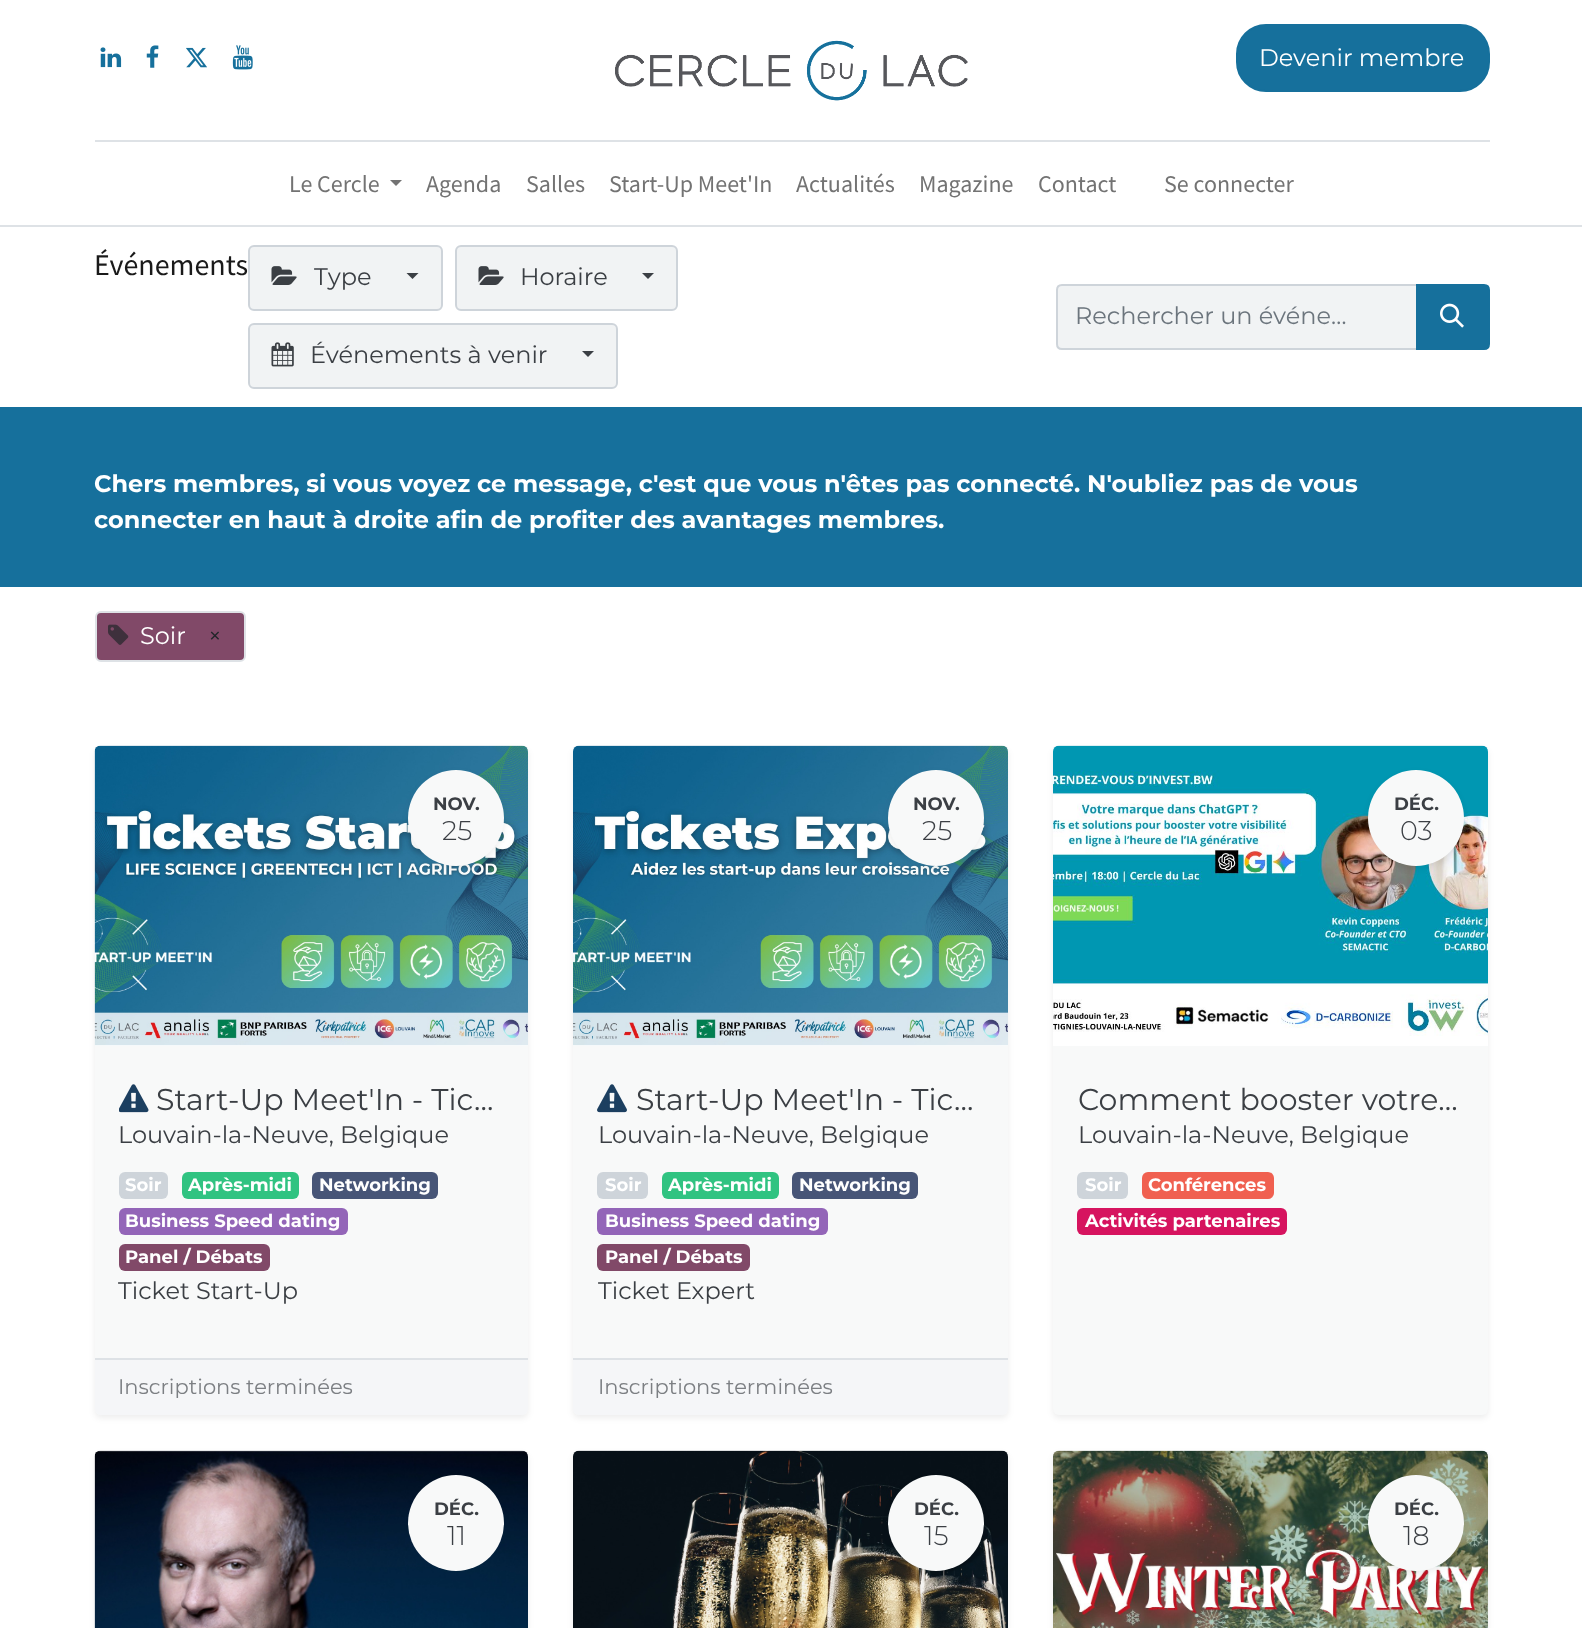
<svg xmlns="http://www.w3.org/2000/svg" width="1582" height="1628">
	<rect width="100%" height="100%" fill="#FFFFFF" />
	<image x="100" y="47" width="22" height="21" href="assets/img1.png" />
	<image x="146" y="45" width="13" height="23" href="assets/img2.png" />
	<image x="186" y="47" width="21" height="21" href="assets/img3.png" />
	<image x="232" y="45" width="21" height="25" href="assets/img4.png" />
	<image x="615" y="40" width="353" height="61" href="assets/img5.png" />
	<rect x="1237" y="25" width="252" height="66" rx="29" fill="#16709C" stroke="#16709C" stroke-width="2" />
	<text x="1259" y="66" font-family="Montserrat" font-size="24" fill="#FFFFFF">Devenir membre</text>
	<rect x="95" y="140" width="1395" height="2" fill="#DEE2E6" />
	<text x="289" y="192" font-family="Source Sans Pro" font-size="24" fill="#737373">Le Cercle</text>
	<path d="M390 180H402L396 186Z" fill="#737373" />
	<g font-family="Source Sans Pro" font-size="24" fill="#737373">
		<text x="426" y="192">Agenda</text>
		<text x="526" y="192">Salles</text>
		<text x="609" y="192">Start-Up Meet'In</text>
		<text x="796" y="192">Actualités</text>
		<text x="919" y="192">Magazine</text>
		<text x="1038" y="192">Contact</text>
		<text x="1164" y="192">Se connecter</text>
	</g>
	<rect x="0" y="225" width="1582" height="2" fill="#DEE2E6" />
	<text x="94" y="275" font-family="Source Sans Pro" font-size="30" fill="#1A1A1A">Événements</text>
	<rect x="249" y="246" width="193" height="64" rx="5" fill="#F1F3F4" stroke="#CED4DA" stroke-width="2" />
	<image x="271" y="266" width="26" height="19" href="assets/img6.png" />
	<text x="314" y="285" font-family="Montserrat" font-size="24" fill="#3B3F44">Type</text>
	<path d="M406.5 273H418.5L412.5 279Z" fill="#3B3F44" />
	<rect x="456" y="246" width="221" height="64" rx="5" fill="#F1F3F4" stroke="#CED4DA" stroke-width="2" />
	<image x="478" y="266" width="26" height="19" href="assets/img6.png" />
	<text x="520" y="285" font-family="Montserrat" font-size="24" fill="#3B3F44">Horaire</text>
	<path d="M642 273H654L648 279Z" fill="#3B3F44" />
	<rect x="249" y="324" width="368" height="64" rx="5" fill="#F1F3F4" stroke="#CED4DA" stroke-width="2" />
	<image x="271" y="342" width="23" height="25" href="assets/img7.png" />
	<text x="310" y="363" font-family="Montserrat" font-size="24" fill="#3B3F44">Événements à venir</text>
	<path d="M582 351H594L588 357Z" fill="#3B3F44" />
	<path d="M1062 285H1417V349H1062C1059 349 1057 347 1057 344V290C1057 287 1059 285 1062 285Z" fill="#F1F3F4" stroke="#CED4DA" stroke-width="2" />
	<text x="1075" y="324" font-family="Montserrat" font-size="24" fill="#6C757D">Rechercher un événe…</text>
	<path d="M1417 285H1484C1487 285 1489 287 1489 290V344C1489 347 1487 349 1484 349H1417Z" fill="#16709C" stroke="#16709C" stroke-width="2" />
	<image x="1440" y="303" width="24" height="25" href="assets/img8.png" />
	<rect x="0" y="407" width="1582" height="180" fill="#16709C" />
	<g font-family="Montserrat" font-size="24" font-weight="700" fill="#FFFFFF">
		<text x="94" y="492">Chers membres, si vous voyez ce message, c'est que vous n'êtes pas connecté. N'oubliez pas de vous</text>
		<text x="94" y="528">connecter en haut à droite afin de profiter des avantages membres.</text>
	</g>
	<rect x="96" y="612" width="149" height="49" rx="5" fill="#814968" stroke="#DEE2E6" stroke-width="2" />
	<image x="108" y="624" width="21" height="21" href="assets/img9.png" />
	<text x="140" y="644" font-family="Montserrat" font-size="24" fill="#FFFFFF">Soir</text>
	<text x="208" y="644" font-family="Montserrat" font-size="24" fill="#212529">×</text>
	<rect x="95" y="749" width="433" height="669" rx="6" fill="#000000" fill-opacity="0.07" filter="blur(3px)" />
	<rect x="95" y="746" width="433" height="669" rx="6" fill="#F8F9F9" />
	<path d="M101 746H522C525.5 746 528 748.5 528 752V1046H95V752C95 748.5 97.5 746 101 746Z" fill="#FFFFFF" />
	<image x="94" y="745" width="434" height="301" href="assets/img10.png" />
	<rect x="408" y="773" width="96" height="96" rx="48" fill="#000000" fill-opacity="0.07" filter="blur(3px)" />
	<circle cx="456" cy="818" r="48" fill="#F8F9F9" />
	<text x="433" y="810" font-family="Montserrat" font-size="18" font-weight="700" fill="#3B3F44">NOV.</text>
	<text x="442" y="840" font-family="Montserrat" font-size="27" font-weight="300" fill="#3B3F44">25</text>
	<image x="119" y="1084" width="30" height="29" href="assets/img11.png" />
	<text x="156" y="1110" font-family="Montserrat" font-size="30" fill="#3B3F44">Start-Up Meet'In - Tic…</text>
	<text x="118" y="1143" font-family="Montserrat" font-size="24" fill="#3B3F44">Louvain-la-Neuve, Belgique</text>
	<rect x="119" y="1172" width="49" height="27" rx="6" fill="#CED4DA" />
	<text x="125" y="1191" font-family="Montserrat" font-size="18" font-weight="700" fill="#FFFFFF">Soir</text>
	<rect x="182" y="1172" width="117" height="27" rx="6" fill="#30C381" />
	<text x="188" y="1191" font-family="Montserrat" font-size="18" font-weight="700" fill="#FFFFFF">Après-midi</text>
	<rect x="312" y="1172" width="126" height="27" rx="6" fill="#475577" />
	<text x="319" y="1191" font-family="Montserrat" font-size="18" font-weight="700" fill="#FFFFFF">Networking</text>
	<rect x="119" y="1208" width="229" height="27" rx="6" fill="#9365B8" />
	<text x="125" y="1227" font-family="Montserrat" font-size="18" font-weight="700" fill="#FFFFFF">Business Speed dating</text>
	<rect x="119" y="1244" width="151" height="27" rx="6" fill="#814968" />
	<text x="125" y="1263" font-family="Montserrat" font-size="18" font-weight="700" fill="#FFFFFF">Panel / Débats</text>
	<text x="118" y="1299" font-family="Montserrat" font-size="24" fill="#3B3F44">Ticket Start-Up</text>
	<path d="M95 1358H528V1409C528 1412.5 525.5 1415 522 1415H101C97.5 1415 95 1412.5 95 1409Z" fill="#F5F6F8" />
	<rect x="95" y="1358" width="433" height="2" fill="#DEE2E6" />
	<text x="118" y="1394" font-family="Montserrat" font-size="21" fill="#7C7F83">Inscriptions terminées</text>
	<rect x="573" y="749" width="435" height="669" rx="6" fill="#000000" fill-opacity="0.07" filter="blur(3px)" />
	<rect x="573" y="746" width="435" height="669" rx="6" fill="#F8F9F9" />
	<path d="M579 746H1002C1005.5 746 1008 748.5 1008 752V1046H573V752C573 748.5 575.5 746 579 746Z" fill="#FFFFFF" />
	<image x="573" y="745" width="435" height="301" href="assets/img12.png" />
	<rect x="888" y="773" width="96" height="96" rx="48" fill="#000000" fill-opacity="0.07" filter="blur(3px)" />
	<circle cx="936" cy="818" r="48" fill="#F8F9F9" />
	<text x="913" y="810" font-family="Montserrat" font-size="18" font-weight="700" fill="#3B3F44">NOV.</text>
	<text x="922" y="840" font-family="Montserrat" font-size="27" font-weight="300" fill="#3B3F44">25</text>
	<image x="597" y="1084" width="30" height="29" href="assets/img13.png" />
	<text x="636" y="1110" font-family="Montserrat" font-size="30" fill="#3B3F44">Start-Up Meet'In - Tic…</text>
	<text x="598" y="1143" font-family="Montserrat" font-size="24" fill="#3B3F44">Louvain-la-Neuve, Belgique</text>
	<rect x="597" y="1172" width="51" height="27" rx="6" fill="#CED4DA" />
	<text x="605" y="1191" font-family="Montserrat" font-size="18" font-weight="700" fill="#FFFFFF">Soir</text>
	<rect x="662" y="1172" width="117" height="27" rx="6" fill="#30C381" />
	<text x="668" y="1191" font-family="Montserrat" font-size="18" font-weight="700" fill="#FFFFFF">Après-midi</text>
	<rect x="792" y="1172" width="126" height="27" rx="6" fill="#475577" />
	<text x="799" y="1191" font-family="Montserrat" font-size="18" font-weight="700" fill="#FFFFFF">Networking</text>
	<rect x="597" y="1208" width="231" height="27" rx="6" fill="#9365B8" />
	<text x="605" y="1227" font-family="Montserrat" font-size="18" font-weight="700" fill="#FFFFFF">Business Speed dating</text>
	<rect x="597" y="1244" width="153" height="27" rx="6" fill="#814968" />
	<text x="605" y="1263" font-family="Montserrat" font-size="18" font-weight="700" fill="#FFFFFF">Panel / Débats</text>
	<text x="598" y="1299" font-family="Montserrat" font-size="24" fill="#3B3F44">Ticket Expert</text>
	<path d="M573 1358H1008V1409C1008 1412.5 1005.5 1415 1002 1415H579C575.5 1415 573 1412.5 573 1409Z" fill="#F5F6F8" />
	<rect x="573" y="1358" width="435" height="2" fill="#DEE2E6" />
	<text x="598" y="1394" font-family="Montserrat" font-size="21" fill="#7C7F83">Inscriptions terminées</text>
	<rect x="1053" y="749" width="435" height="669" rx="6" fill="#000000" fill-opacity="0.07" filter="blur(3px)" />
	<rect x="1053" y="746" width="435" height="669" rx="6" fill="#F8F9F9" />
	<path d="M1059 746H1482C1485.5 746 1488 748.5 1488 752V1046H1053V752C1053 748.5 1055.5 746 1059 746Z" fill="#FFFFFF" />
	<image x="1053" y="745" width="435" height="291" href="assets/img14.png" />
	<rect x="1368" y="773" width="96" height="96" rx="48" fill="#000000" fill-opacity="0.07" filter="blur(3px)" />
	<circle cx="1416" cy="818" r="48" fill="#F8F9F9" />
	<text x="1394" y="810" font-family="Montserrat" font-size="18" font-weight="700" fill="#3B3F44">DÉC.</text>
	<text x="1400" y="840" font-family="Montserrat" font-size="27" font-weight="300" fill="#3B3F44">03</text>
	<text x="1078" y="1110" font-family="Montserrat" font-size="30" fill="#3B3F44">Comment booster votre…</text>
	<text x="1078" y="1143" font-family="Montserrat" font-size="24" fill="#3B3F44">Louvain-la-Neuve, Belgique</text>
	<rect x="1077" y="1172" width="51" height="27" rx="6" fill="#CED4DA" />
	<text x="1085" y="1191" font-family="Montserrat" font-size="18" font-weight="700" fill="#FFFFFF">Soir</text>
	<rect x="1142" y="1172" width="132" height="27" rx="6" fill="#F06050" />
	<text x="1148" y="1191" font-family="Montserrat" font-size="18" font-weight="700" fill="#FFFFFF">Conférences</text>
	<rect x="1077" y="1208" width="210" height="27" rx="6" fill="#D6145F" />
	<text x="1085" y="1227" font-family="Montserrat" font-size="18" font-weight="700" fill="#FFFFFF">Activités partenaires</text>
	<rect x="95" y="1454" width="433" height="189" rx="6" fill="#000000" fill-opacity="0.07" filter="blur(3px)" />
	<image x="94" y="1450" width="434" height="178" href="assets/img15.png" />
	<circle cx="456" cy="1523" r="48" fill="#F8F9F9" />
	<text x="434" y="1515" font-family="Montserrat" font-size="18" font-weight="700" fill="#3B3F44">DÉC.</text>
	<text x="447" y="1545" font-family="Montserrat" font-size="27" font-weight="300" fill="#3B3F44">11</text>
	<rect x="573" y="1454" width="435" height="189" rx="6" fill="#000000" fill-opacity="0.07" filter="blur(3px)" />
	<image x="573" y="1450" width="435" height="178" href="assets/img16.png" />
	<rect x="888" y="1478" width="96" height="96" rx="48" fill="#000000" fill-opacity="0.07" filter="blur(3px)" />
	<circle cx="936" cy="1523" r="48" fill="#F8F9F9" />
	<text x="914" y="1515" font-family="Montserrat" font-size="18" font-weight="700" fill="#3B3F44">DÉC.</text>
	<text x="924" y="1545" font-family="Montserrat" font-size="27" font-weight="300" fill="#3B3F44">15</text>
	<rect x="1053" y="1454" width="435" height="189" rx="6" fill="#000000" fill-opacity="0.07" filter="blur(3px)" />
	<image x="1053" y="1450" width="435" height="178" href="assets/img17.png" />
	<rect x="1368" y="1478" width="96" height="96" rx="48" fill="#000000" fill-opacity="0.07" filter="blur(3px)" />
	<circle cx="1416" cy="1523" r="48" fill="#F8F9F9" />
	<text x="1394" y="1515" font-family="Montserrat" font-size="18" font-weight="700" fill="#3B3F44">DÉC.</text>
	<text x="1403" y="1545" font-family="Montserrat" font-size="27" font-weight="300" fill="#3B3F44">18</text>
</svg>
